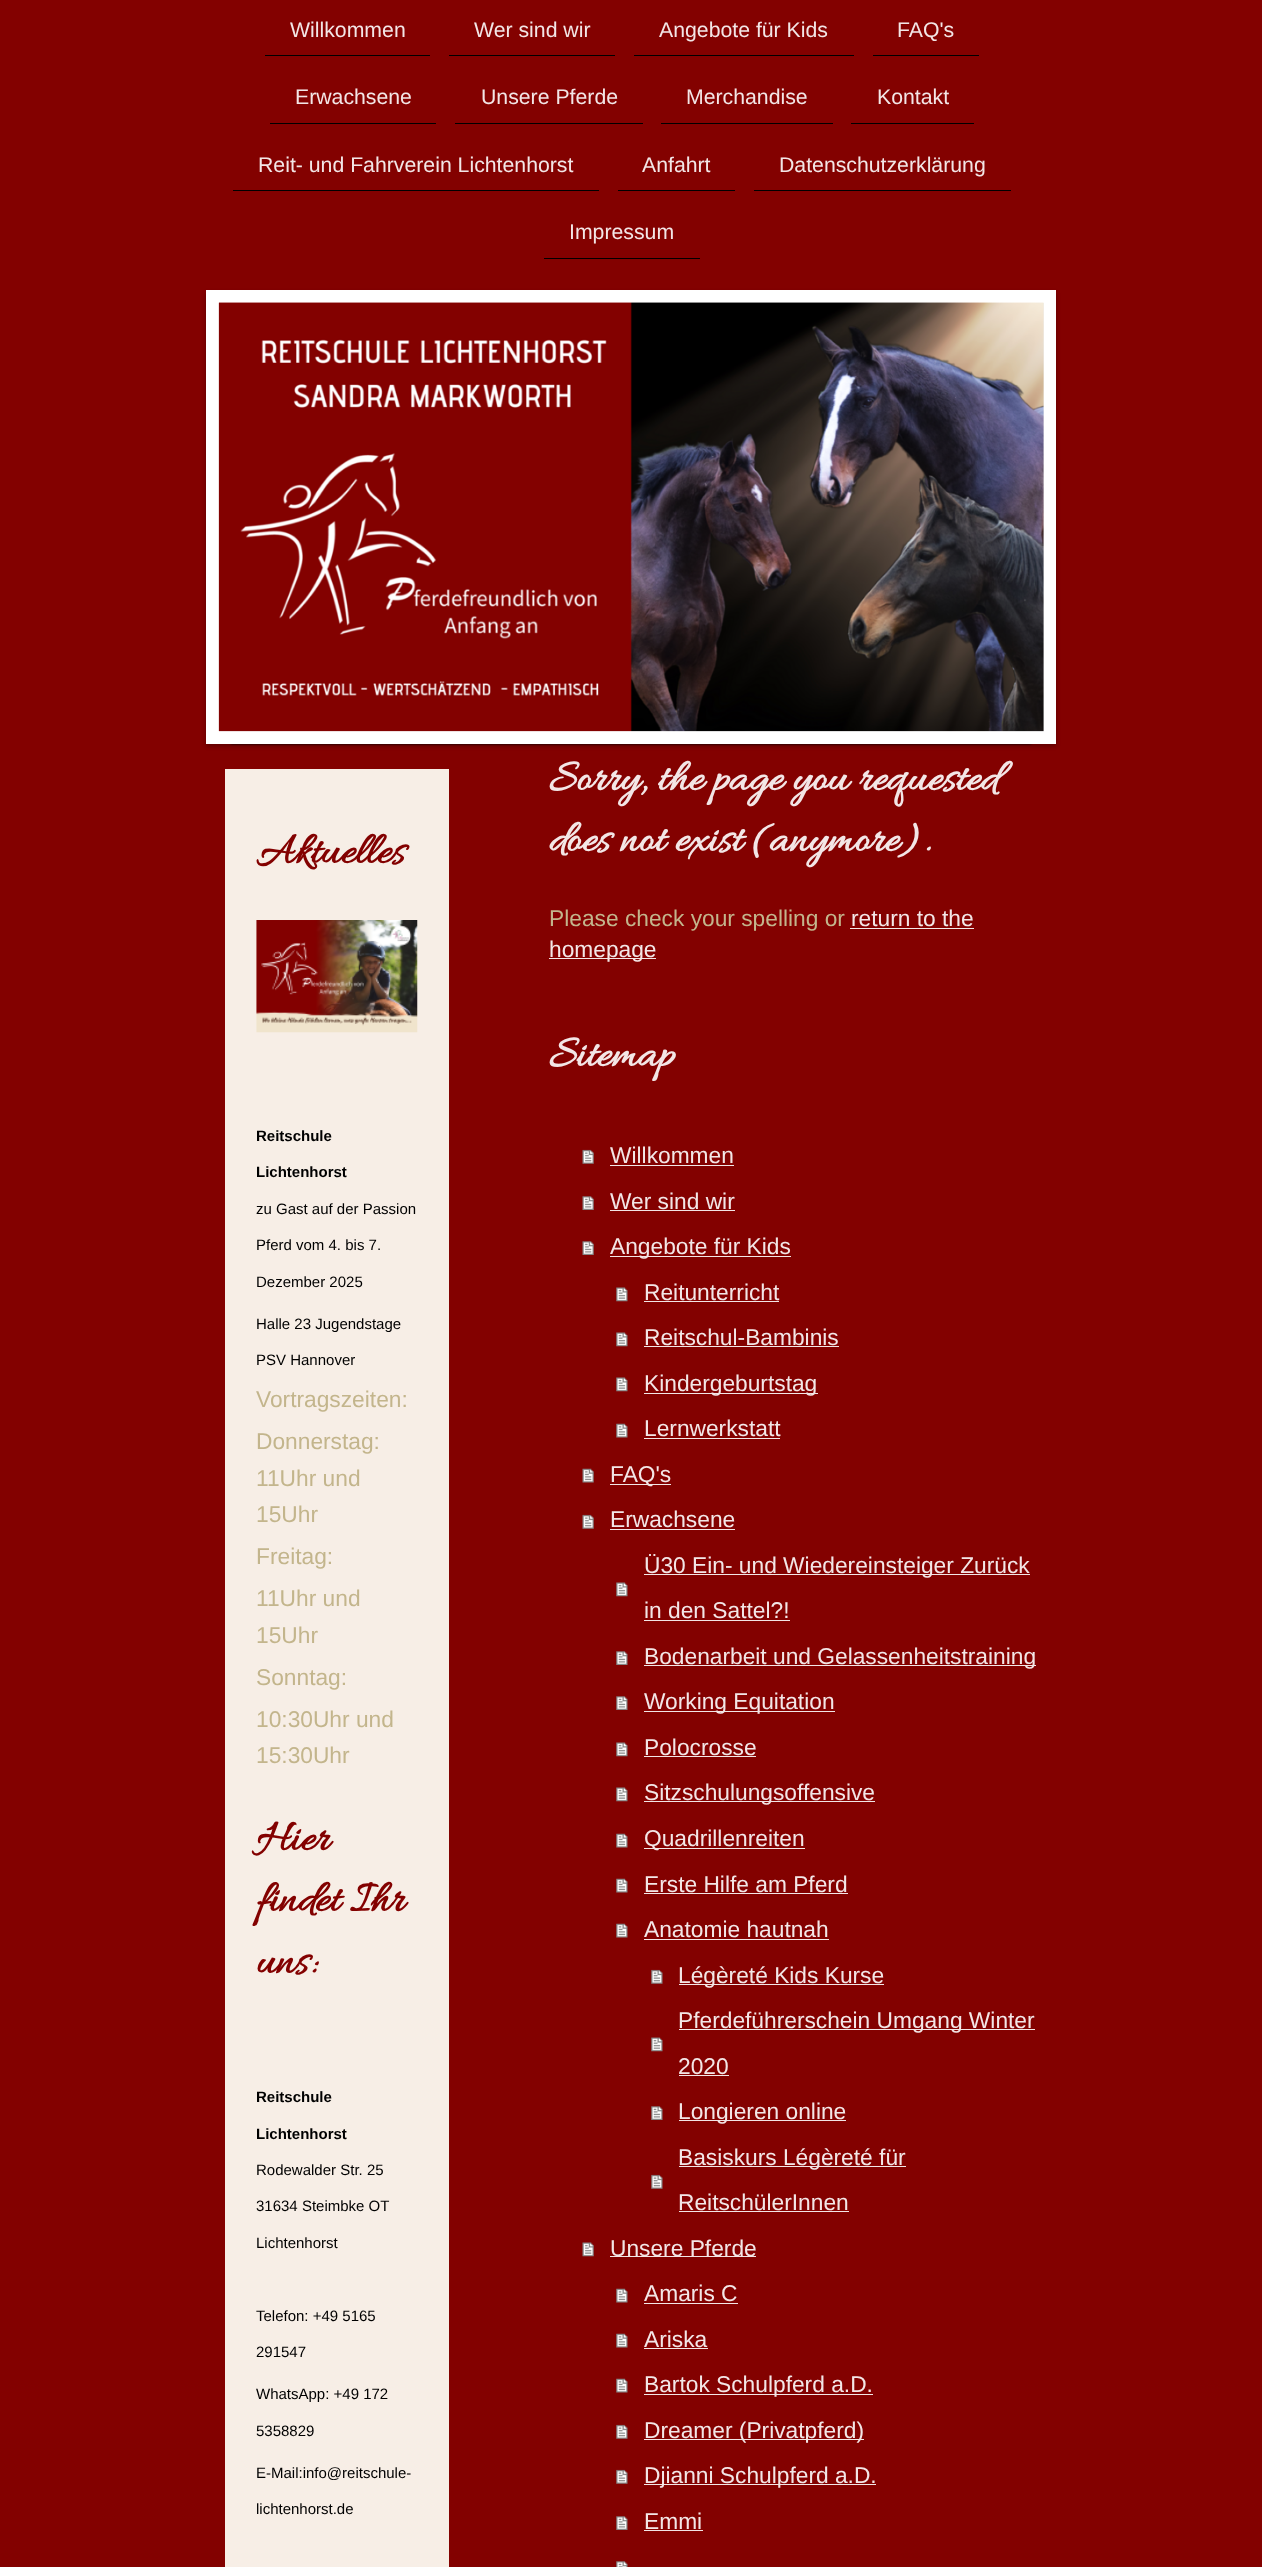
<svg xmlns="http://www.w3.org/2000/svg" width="1262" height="2567">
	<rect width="100%" height="100%" fill="#830100" />
	<text x="290" y="37" font-family="Liberation Sans" font-size="21.25" fill="#F3E6E6">Willkommen</text>
	<rect x="265" y="55" width="165" height="1" fill="#000000" />
	<text x="474" y="37" font-family="Liberation Sans" font-size="21.25" fill="#F3E6E6">Wer sind wir</text>
	<rect x="449" y="55" width="166" height="1" fill="#000000" />
	<text x="659" y="37" font-family="Liberation Sans" font-size="21.25" fill="#F3E6E6">Angebote für Kids</text>
	<rect x="634" y="55" width="220" height="1" fill="#000000" />
	<text x="897" y="37" font-family="Liberation Sans" font-size="21.25" fill="#F3E6E6">FAQ's</text>
	<rect x="873" y="55" width="106" height="1" fill="#000000" />
	<text x="295" y="104" font-family="Liberation Sans" font-size="21.25" fill="#F3E6E6">Erwachsene</text>
	<rect x="270" y="123" width="166" height="1" fill="#000000" />
	<text x="481" y="104" font-family="Liberation Sans" font-size="21.25" fill="#F3E6E6">Unsere Pferde</text>
	<rect x="455" y="123" width="188" height="1" fill="#000000" />
	<text x="686" y="104" font-family="Liberation Sans" font-size="21.25" fill="#F3E6E6">Merchandise</text>
	<rect x="661" y="123" width="172" height="1" fill="#000000" />
	<text x="877" y="104" font-family="Liberation Sans" font-size="21.25" fill="#F3E6E6">Kontakt</text>
	<rect x="851" y="123" width="123" height="1" fill="#000000" />
	<text x="258" y="172" font-family="Liberation Sans" font-size="21.25" fill="#F3E6E6">Reit- und Fahrverein Lichtenhorst</text>
	<rect x="233" y="190" width="366" height="1" fill="#000000" />
	<text x="642" y="172" font-family="Liberation Sans" font-size="21.25" fill="#F3E6E6">Anfahrt</text>
	<rect x="618" y="190" width="117" height="1" fill="#000000" />
	<text x="779" y="172" font-family="Liberation Sans" font-size="21.25" fill="#F3E6E6">Datenschutzerklärung</text>
	<rect x="754" y="190" width="257" height="1" fill="#000000" />
	<text x="569" y="239" font-family="Liberation Sans" font-size="21.25" fill="#F3E6E6">Impressum</text>
	<rect x="544" y="258" width="156" height="1" fill="#000000" />
	<rect x="206" y="293" width="850" height="453" fill="#000000" fill-opacity="0.3" filter="blur(2px)" />
	<rect x="231" y="340" width="800" height="404" fill="#000000" filter="blur(1px)" />
	<rect x="212.5" y="296.5" width="837" height="441" fill="none" stroke="#FFFFFF" stroke-width="13" />
	<image x="218" y="302" width="826" height="430" href="assets/img1.png" />
	<rect x="1043" y="303" width="1" height="428" fill="#EEEEEE" />
	<image x="218" y="302" width="826" height="430" href="assets/img2.png" />
	<rect x="225" y="769" width="224" height="1798" fill="#F7EEE6" />
	<text x="256" y="862" font-family="Allura" font-size="45.5" font-weight="700" fill="#830100">Aktuelles</text>
	<image x="256" y="920" width="162" height="113" href="assets/img3.png" />
	<g font-family="Liberation Sans" font-size="15" font-weight="700" fill="#000000">
		<text x="256" y="1141">Reitschule</text>
		<text x="256" y="1177">Lichtenhorst</text>
	</g>
	<g font-family="Liberation Sans" font-size="15" fill="#000000">
		<text x="256" y="1214">zu Gast auf der Passion</text>
		<text x="256" y="1250">Pferd vom 4. bis 7.</text>
		<text x="256" y="1287">Dezember 2025</text>
		<text x="256" y="1329">Halle 23 Jugendstage</text>
		<text x="256" y="1365">PSV Hannover</text>
	</g>
	<g font-family="Liberation Sans" font-size="22.75" fill="#C3B58C">
		<text x="256" y="1407">Vortragszeiten:</text>
		<text x="256" y="1449">Donnerstag:</text>
		<text x="256" y="1486">11Uhr und</text>
		<text x="256" y="1522">15Uhr</text>
		<text x="256" y="1564">Freitag:</text>
		<text x="256" y="1606">11Uhr und</text>
		<text x="256" y="1643">15Uhr</text>
		<text x="256" y="1685">Sonntag:</text>
		<text x="256" y="1727">10:30Uhr und</text>
		<text x="256" y="1763">15:30Uhr</text>
	</g>
	<g font-family="Allura" font-size="45.5" font-weight="700" fill="#830100">
		<text x="256" y="1849">Hier</text>
		<text x="256" y="1910">findet Ihr</text>
		<text x="256" y="1972">uns:</text>
	</g>
	<g font-family="Liberation Sans" font-size="15" font-weight="700" fill="#000000">
		<text x="256" y="2102">Reitschule</text>
		<text x="256" y="2139">Lichtenhorst</text>
	</g>
	<g font-family="Liberation Sans" font-size="15" fill="#000000">
		<text x="256" y="2175">Rodewalder Str. 25</text>
		<text x="256" y="2211">31634 Steimbke OT</text>
		<text x="256" y="2248">Lichtenhorst</text>
		<text x="256" y="2321">Telefon: +49 5165</text>
		<text x="256" y="2357">291547</text>
		<text x="256" y="2399">WhatsApp: +49 172</text>
		<text x="256" y="2436">5358829</text>
		<text x="256" y="2478">E-Mail:info@reitschule-</text>
		<text x="256" y="2514">lichtenhorst.de</text>
	</g>
	<g font-family="Allura" font-size="45.5" font-weight="700" fill="#F3E6E6">
		<text x="549" y="789">Sorry, the page you requested</text>
		<text x="549" y="850">does not exist (anymore).</text>
	</g>
	<text x="549" y="926" font-family="Liberation Sans" font-size="22.75" fill="#C3B58C">Please check your spelling or</text>
	<text x="851" y="926" font-family="Liberation Sans" font-size="22.75" fill="#F3E6E6">return to the</text>
	<rect x="850" y="928" width="124" height="1" fill="#F3E6E6" />
	<rect x="549" y="958" width="107" height="1" fill="#F3E6E6" />
	<text x="549" y="957" font-family="Liberation Sans" font-size="22.75" fill="#F3E6E6">homepage</text>
	<text x="549" y="1065" font-family="Allura" font-size="45.5" font-weight="700" fill="#F3E6E6">Sitemap</text>
	<image x="582" y="1149" width="12" height="15" href="assets/img4.png" />
	<text x="610" y="1163" font-family="Liberation Sans" font-size="22.75" fill="#F3E6E6">Willkommen</text>
	<rect x="610" y="1165" width="124" height="1" fill="#F3E6E6" />
	<image x="582" y="1196" width="12" height="14" href="assets/img5.png" />
	<text x="610" y="1209" font-family="Liberation Sans" font-size="22.75" fill="#F3E6E6">Wer sind wir</text>
	<rect x="610" y="1210" width="125" height="1" fill="#F3E6E6" />
	<image x="582" y="1241" width="12" height="14" href="assets/img5.png" />
	<rect x="610" y="1256" width="181" height="1" fill="#F3E6E6" />
	<text x="610" y="1254" font-family="Liberation Sans" font-size="22.75" fill="#F3E6E6">Angebote für Kids</text>
	<image x="616" y="1287" width="12" height="15" href="assets/img6.png" />
	<text x="644" y="1300" font-family="Liberation Sans" font-size="22.75" fill="#F3E6E6">Reitunterricht</text>
	<rect x="644" y="1301" width="135" height="1" fill="#F3E6E6" />
	<image x="616" y="1332" width="12" height="15" href="assets/img6.png" />
	<text x="644" y="1345" font-family="Liberation Sans" font-size="22.75" fill="#F3E6E6">Reitschul-Bambinis</text>
	<rect x="644" y="1346" width="195" height="1" fill="#F3E6E6" />
	<image x="616" y="1377" width="12" height="15" href="assets/img6.png" />
	<rect x="644" y="1393" width="174" height="1" fill="#F3E6E6" />
	<text x="644" y="1391" font-family="Liberation Sans" font-size="22.75" fill="#F3E6E6">Kindergeburtstag</text>
	<image x="616" y="1423" width="12" height="15" href="assets/img7.png" />
	<text x="644" y="1436" font-family="Liberation Sans" font-size="22.75" fill="#F3E6E6">Lernwerkstatt</text>
	<rect x="644" y="1438" width="136" height="1" fill="#F3E6E6" />
	<image x="582" y="1468" width="12" height="15" href="assets/img8.png" />
	<rect x="610" y="1484" width="61" height="1" fill="#F3E6E6" />
	<text x="610" y="1482" font-family="Liberation Sans" font-size="22.75" fill="#F3E6E6">FAQ's</text>
	<image x="582" y="1514" width="12" height="15" href="assets/img9.png" />
	<text x="610" y="1527" font-family="Liberation Sans" font-size="22.75" fill="#F3E6E6">Erwachsene</text>
	<rect x="610" y="1529" width="125" height="1" fill="#F3E6E6" />
	<image x="616" y="1582" width="12" height="15" href="assets/img6.png" />
	<rect x="644" y="1574" width="386" height="1" fill="#F3E6E6" />
	<g font-family="Liberation Sans" font-size="22.75" fill="#F3E6E6">
		<text x="644" y="1573">Ü30 Ein- und Wiedereinsteiger Zurück</text>
		<text x="644" y="1618">in den Sattel?!</text>
	</g>
	<rect x="644" y="1620" width="146" height="1" fill="#F3E6E6" />
	<image x="616" y="1651" width="12" height="14" href="assets/img10.png" />
	<rect x="644" y="1665" width="392" height="1" fill="#F3E6E6" />
	<text x="644" y="1664" font-family="Liberation Sans" font-size="22.75" fill="#F3E6E6">Bodenarbeit und Gelassenheitstraining</text>
	<image x="616" y="1696" width="12" height="14" href="assets/img10.png" />
	<rect x="644" y="1711" width="191" height="1" fill="#F3E6E6" />
	<text x="644" y="1709" font-family="Liberation Sans" font-size="22.75" fill="#F3E6E6">Working Equitation</text>
	<image x="616" y="1742" width="12" height="15" href="assets/img6.png" />
	<text x="644" y="1755" font-family="Liberation Sans" font-size="22.75" fill="#F3E6E6">Polocrosse</text>
	<rect x="644" y="1756" width="112" height="1" fill="#F3E6E6" />
	<image x="616" y="1787" width="12" height="15" href="assets/img6.png" />
	<rect x="644" y="1801" width="231" height="1" fill="#F3E6E6" />
	<text x="644" y="1800" font-family="Liberation Sans" font-size="22.75" fill="#F3E6E6">Sitzschulungsoffensive</text>
	<image x="616" y="1833" width="12" height="15" href="assets/img7.png" />
	<rect x="644" y="1848" width="161" height="1" fill="#F3E6E6" />
	<text x="644" y="1846" font-family="Liberation Sans" font-size="22.75" fill="#F3E6E6">Quadrillenreiten</text>
	<image x="616" y="1878" width="12" height="15" href="assets/img7.png" />
	<text x="644" y="1892" font-family="Liberation Sans" font-size="22.75" fill="#F3E6E6">Erste Hilfe am Pferd</text>
	<rect x="644" y="1893" width="204" height="1" fill="#F3E6E6" />
	<image x="616" y="1923" width="12" height="15" href="assets/img7.png" />
	<text x="644" y="1937" font-family="Liberation Sans" font-size="22.75" fill="#F3E6E6">Anatomie hautnah</text>
	<rect x="644" y="1939" width="185" height="1" fill="#F3E6E6" />
	<image x="651" y="1969" width="12" height="15" href="assets/img11.png" />
	<rect x="679" y="1984" width="205" height="1" fill="#F3E6E6" />
	<text x="678" y="1983" font-family="Liberation Sans" font-size="22.75" fill="#F3E6E6">Légèreté Kids Kurse</text>
	<image x="651" y="2037" width="12" height="15" href="assets/img12.png" />
	<rect x="679" y="2029" width="356" height="1" fill="#F3E6E6" />
	<g font-family="Liberation Sans" font-size="22.75" fill="#F3E6E6">
		<text x="678" y="2028">Pferdeführerschein Umgang Winter</text>
		<text x="678" y="2074">2020</text>
	</g>
	<rect x="679" y="2075" width="50" height="1" fill="#F3E6E6" />
	<image x="651" y="2106" width="12" height="14" href="assets/img10.png" />
	<rect x="679" y="2120" width="167" height="1" fill="#F3E6E6" />
	<text x="678" y="2119" font-family="Liberation Sans" font-size="22.75" fill="#F3E6E6">Longieren online</text>
	<image x="651" y="2174" width="12" height="15" href="assets/img11.png" />
	<rect x="679" y="2166" width="227" height="1" fill="#F3E6E6" />
	<g font-family="Liberation Sans" font-size="22.75" fill="#F3E6E6">
		<text x="678" y="2165">Basiskurs Légèreté für</text>
		<text x="678" y="2210">ReitschülerInnen</text>
	</g>
	<rect x="679" y="2211" width="170" height="1" fill="#F3E6E6" />
	<image x="582" y="2242" width="12" height="15" href="assets/img13.png" />
	<rect x="610" y="2256" width="146" height="1" fill="#F3E6E6" />
	<text x="610" y="2256" font-family="Liberation Sans" font-size="22.75" fill="#F3E6E6">Unsere Pferde</text>
	<image x="616" y="2288" width="12" height="15" href="assets/img7.png" />
	<text x="644" y="2301" font-family="Liberation Sans" font-size="22.75" fill="#F3E6E6">Amaris C</text>
	<rect x="644" y="2303" width="94" height="1" fill="#F3E6E6" />
	<image x="616" y="2333" width="12" height="15" href="assets/img7.png" />
	<text x="644" y="2347" font-family="Liberation Sans" font-size="22.75" fill="#F3E6E6">Ariska</text>
	<rect x="644" y="2348" width="64" height="1" fill="#F3E6E6" />
	<image x="616" y="2378" width="12" height="15" href="assets/img7.png" />
	<rect x="644" y="2394" width="229" height="1" fill="#F3E6E6" />
	<text x="644" y="2392" font-family="Liberation Sans" font-size="22.75" fill="#F3E6E6">Bartok Schulpferd a.D.</text>
	<image x="616" y="2424" width="12" height="15" href="assets/img14.png" />
	<rect x="644" y="2439" width="220" height="1" fill="#F3E6E6" />
	<text x="644" y="2438" font-family="Liberation Sans" font-size="22.75" fill="#F3E6E6">Dreamer (Privatpferd)</text>
	<image x="616" y="2469" width="12" height="15" href="assets/img11.png" />
	<rect x="644" y="2484" width="232" height="1" fill="#F3E6E6" />
	<text x="644" y="2483" font-family="Liberation Sans" font-size="22.75" fill="#F3E6E6">Djianni Schulpferd a.D.</text>
	<image x="616" y="2516" width="12" height="14" href="assets/img10.png" />
	<text x="644" y="2529" font-family="Liberation Sans" font-size="22.75" fill="#F3E6E6">Emmi</text>
	<rect x="644" y="2530" width="59" height="1" fill="#F3E6E6" />
	<image x="616" y="2561" width="12" height="6" href="assets/img15.png" />
</svg>
